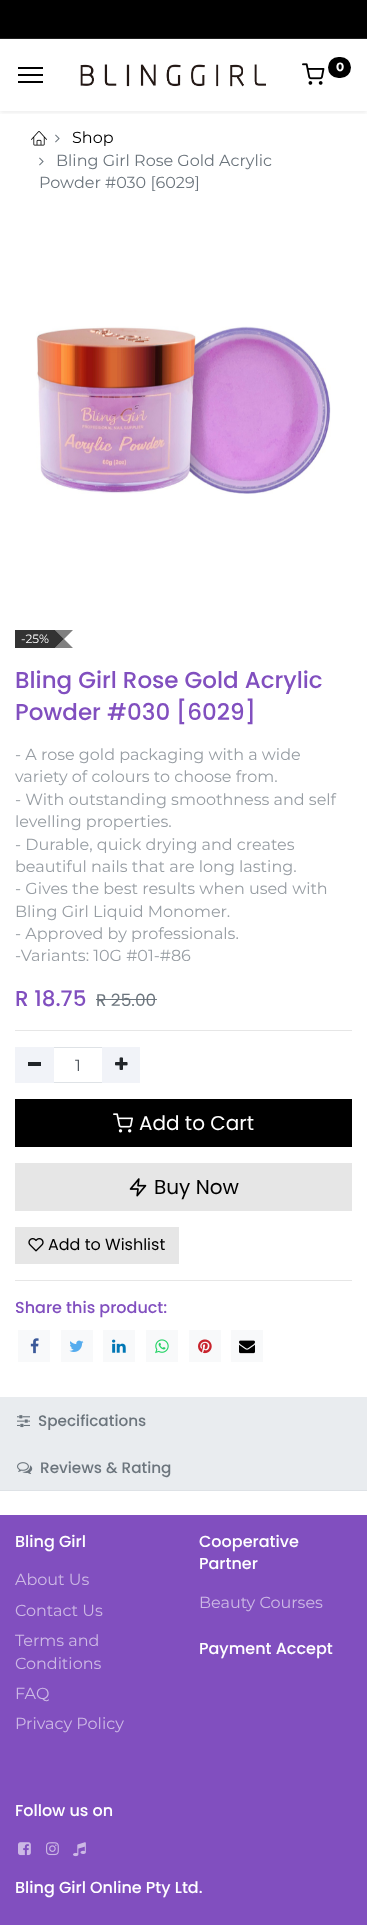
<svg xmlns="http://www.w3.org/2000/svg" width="367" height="1925">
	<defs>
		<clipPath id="clip1"><rect x="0" y="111" width="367" height="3" /></clipPath>
	</defs>
	<rect width="100%" height="100%" fill="#FFFFFF" />
	<rect x="0" y="0" width="367" height="38" fill="#000000" />
	<rect x="0" y="38" width="367" height="1" fill="#1F1F1F" />
	<g clip-path="url(#clip1)">
		<rect x="0" y="41" width="367" height="72" fill="#000000" fill-opacity="0.07" filter="blur(2px)" />
	</g>
	<rect x="18" y="67" width="25" height="2" fill="#000000" />
	<rect x="18" y="74" width="25" height="2" fill="#000000" />
	<rect x="18" y="81" width="25" height="2" fill="#000000" />
	<image x="80" y="64" width="186" height="23" href="assets/img1.png" />
	<image x="302" y="63" width="23" height="22" href="assets/img2.png" />
	<rect x="328" y="57" width="23" height="21" rx="10.5" fill="#000000" />
	<text x="336" y="71" font-family="Montserrat" font-size="12" font-weight="700" fill="#FFFFFF">0</text>
	<image x="31" y="131" width="16" height="15" href="assets/img3.png" />
	<image x="55" y="134" width="5" height="9" href="assets/img4.png" />
	<text x="72" y="143" font-family="Montserrat" font-size="16" fill="#000000">Shop</text>
	<image x="39" y="157" width="5" height="9" href="assets/img4.png" />
	<g font-family="Montserrat" font-size="16" fill="#6C757D">
		<text x="56" y="166">Bling Girl Rose Gold Acrylic</text>
		<text x="39" y="188">Powder #030 [6029]</text>
	</g>
	<image x="36" y="326" width="295" height="168" href="assets/img5.png" />
	<rect x="15" y="630" width="40" height="18" fill="#333333" />
	<text x="21" y="643" font-family="Montserrat" font-size="12" fill="#FFFFFF">-25%</text>
	<path d="M55 630H73L64 639ZM73 648H55L64 639Z" fill="#808080" />
	<path d="M55 648V630L64 639Z" fill="#000000" fill-opacity="0.8" />
	<g font-family="Poppins" font-size="23" font-weight="500" fill="#814FBF">
		<text x="15" y="688">Bling Girl Rose Gold Acrylic</text>
		<text x="15" y="720">Powder #030 [6029]</text>
	</g>
	<g font-family="Montserrat" font-size="16" fill="#989EA4">
		<text x="15" y="760">- A rose gold packaging with a wide</text>
		<text x="15" y="782">variety of colours to choose from.</text>
		<text x="15" y="805">- With outstanding smoothness and self</text>
		<text x="15" y="827">levelling properties.</text>
		<text x="15" y="850">- Durable, quick drying and creates</text>
		<text x="15" y="872">beautiful nails that are long lasting.</text>
		<text x="15" y="894">- Gives the best results when used with</text>
		<text x="15" y="917">Bling Girl Liquid Monomer.</text>
		<text x="15" y="939">- Approved by professionals.</text>
		<text x="15" y="961">-Variants: 10G #01-#86</text>
	</g>
	<text x="15" y="1006" font-family="Poppins" font-size="21.5" font-weight="500" fill="#814FBF">R 18.75</text>
	<text x="96" y="1006" font-family="Poppins" font-size="17" fill="#6C757D">R 25.00</text>
	<rect x="96" y="999" width="61" height="1" fill="#6C757D" />
	<rect x="15" y="1030" width="337" height="1" fill="#E6E6E6" />
	<rect x="53.5" y="1047.5" width="49" height="35" fill="none" stroke="#DEE2E6" />
	<rect x="15" y="1047" width="39" height="36" fill="#F1F3F8" />
	<rect x="28" y="1062" width="13" height="4" fill="#212529" />
	<text x="75" y="1071" font-family="Montserrat" font-size="16" fill="#495057">1</text>
	<rect x="102" y="1047" width="38" height="36" fill="#F1F3F8" />
	<image x="115" y="1057" width="13" height="13" href="assets/img6.png" />
	<rect x="15" y="1099" width="337" height="48" fill="#000000" />
	<image x="113" y="1113" width="20" height="20" href="assets/img7.png" />
	<text x="139" y="1130" font-family="Poppins" font-size="20" fill="#FFFFFF">Add to Cart</text>
	<rect x="15" y="1163" width="337" height="48" fill="#E6E6E6" />
	<image x="129" y="1178" width="18" height="19" href="assets/img8.png" />
	<text x="154" y="1194" font-family="Poppins" font-size="20" fill="#000000">Buy Now</text>
	<rect x="15" y="1227" width="164" height="37" fill="#E6E6E6" />
	<image x="28" y="1238" width="16" height="14" href="assets/img9.png" />
	<text x="48" y="1250" font-family="Poppins" font-size="16" fill="#000000">Add to Wishlist</text>
	<rect x="15" y="1280" width="337" height="1" fill="#E6E6E6" />
	<text x="15" y="1313" font-family="Poppins" font-size="16" font-weight="500" fill="#814FBF">Share this product:</text>
	<rect x="18" y="1330" width="32" height="32" fill="#F8F9FA" />
	<image x="30" y="1338" width="9" height="16" href="assets/img10.png" />
	<rect x="61" y="1330" width="32" height="32" fill="#F8F9FA" />
	<image x="69" y="1340" width="15" height="12" href="assets/img11.png" />
	<rect x="103" y="1330" width="32" height="32" fill="#F8F9FA" />
	<image x="112" y="1339" width="14" height="14" href="assets/img12.png" />
	<rect x="146" y="1330" width="32" height="32" fill="#F8F9FA" />
	<image x="155" y="1339" width="14" height="15" href="assets/img13.png" />
	<rect x="189" y="1330" width="32" height="32" fill="#F8F9FA" />
	<image x="198" y="1339" width="14" height="15" href="assets/img14.png" />
	<rect x="231" y="1330" width="32" height="32" fill="#F8F9FA" />
	<image x="239" y="1340" width="16" height="14" href="assets/img15.png" />
	<rect x="0" y="1397" width="367" height="93" fill="#E9ECEF" />
	<rect x="0" y="1490" width="367" height="1" fill="#DEE2E6" />
	<image x="17" y="1415" width="13" height="13" href="assets/img16.png" />
	<text x="38" y="1426" font-family="Poppins" font-size="15.25" font-weight="500" fill="#6C757D">Specifications</text>
	<image x="17" y="1462" width="16" height="12" href="assets/img17.png" />
	<text x="40" y="1473" font-family="Poppins" font-size="15.25" font-weight="500" fill="#6C757D">Reviews &amp; Rating</text>
	<rect x="0" y="1515" width="367" height="410" fill="#814FBF" />
	<text x="15" y="1547" font-family="Poppins" font-size="16" font-weight="500" fill="#FFFFFF">Bling Girl</text>
	<g font-family="Montserrat" font-size="16" fill="#CDB9E5">
		<text x="15" y="1585">About Us</text>
		<text x="15" y="1616">Contact Us</text>
		<text x="15" y="1646">Terms and</text>
		<text x="15" y="1669">Conditions</text>
		<text x="15" y="1699">FAQ</text>
		<text x="15" y="1729">Privacy Policy</text>
	</g>
	<g font-family="Poppins" font-size="16" font-weight="500" fill="#FFFFFF">
		<text x="199" y="1547">Cooperative</text>
		<text x="199" y="1569">Partner</text>
	</g>
	<text x="199" y="1608" font-family="Montserrat" font-size="16" fill="#CDB9E5">Beauty Courses</text>
	<g font-family="Poppins" font-size="16" font-weight="500" fill="#FFFFFF">
		<text x="199" y="1654">Payment Accept</text>
		<text x="15" y="1816">Follow us on</text>
	</g>
	<image x="18" y="1842" width="13" height="14" href="assets/img18.png" />
	<image x="46" y="1842" width="13" height="14" href="assets/img19.png" />
	<image x="73" y="1842" width="13" height="15" href="assets/img20.png" />
	<text x="15" y="1893" font-family="Poppins" font-size="16" font-weight="500" fill="#FFFFFF">Bling Girl Online Pty Ltd.</text>
</svg>
